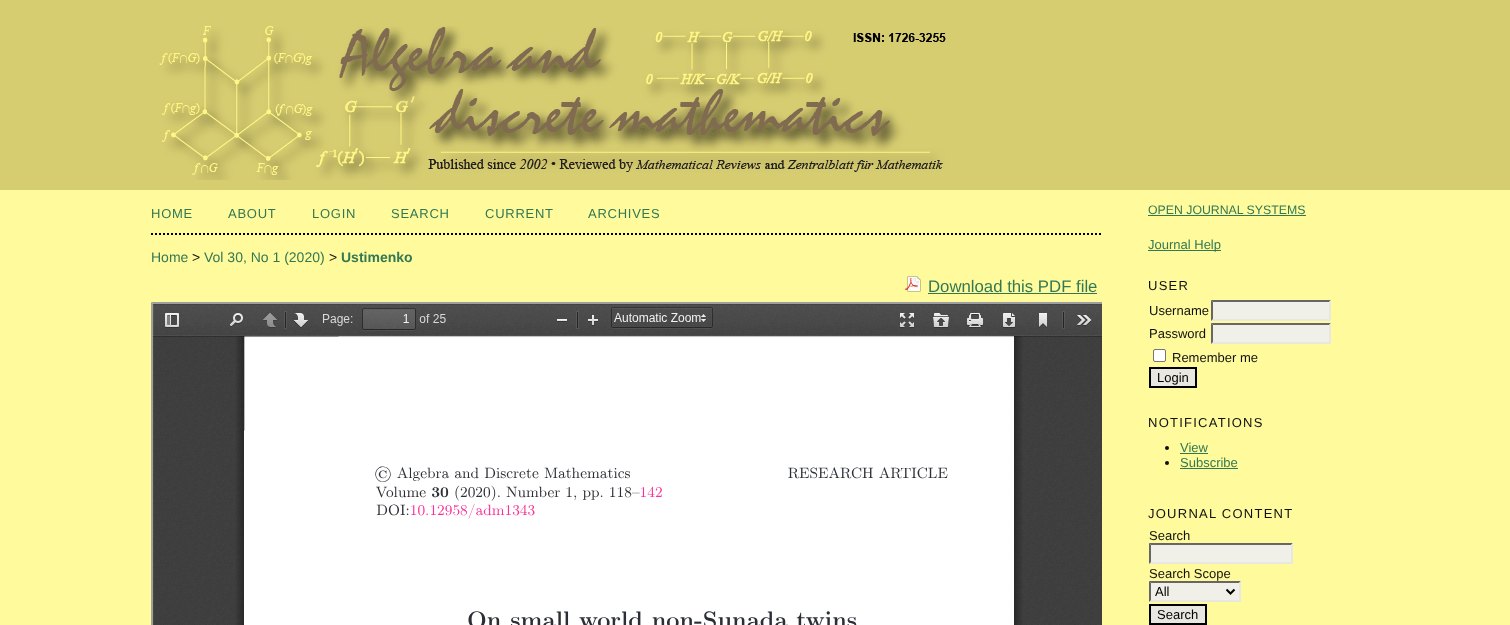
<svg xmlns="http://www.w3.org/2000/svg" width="1510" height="625">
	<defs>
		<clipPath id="clip1"><rect x="151" y="190" width="951" height="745" /></clipPath>
	</defs>
	<rect width="100%" height="100%" fill="#FFFB9C" />
	<rect x="0" y="0" width="1510" height="190" fill="#D6CC70" />
	<image x="159" y="26" width="787" height="154" href="assets/img1.png" />
	<path d="M151 234H1102" fill="none" stroke="#000000" stroke-width="2" stroke-dasharray="2 2" />
	<g font-family="Liberation Sans" font-size="13" letter-spacing="0.75" fill="#337755">
		<text x="151" y="218">HOME</text>
		<text x="228" y="218">ABOUT</text>
		<text x="312" y="218">LOGIN</text>
		<text x="391" y="218">SEARCH</text>
		<text x="485" y="218">CURRENT</text>
		<text x="588" y="218">ARCHIVES</text>
	</g>
	<text x="151" y="262" font-family="Liberation Sans" font-size="14" fill="#337755">Home</text>
	<text x="192" y="262" font-family="Liberation Sans" font-size="14" fill="#111111">&gt;</text>
	<text x="204" y="262" font-family="Liberation Sans" font-size="14" fill="#337755">Vol 30, No 1 (2020)</text>
	<text x="329" y="262" font-family="Liberation Sans" font-size="14" fill="#111111">&gt;</text>
	<text x="341" y="262" font-family="Liberation Sans" font-size="14" font-weight="700" fill="#337755">Ustimenko</text>
	<image x="905" y="276" width="16" height="16" href="assets/img2.png" />
	<text x="928" y="292" font-family="Liberation Sans" font-size="16.75" fill="#337755">Download this PDF file</text>
	<rect x="928" y="293" width="169" height="1" fill="#337755" />
	<g clip-path="url(#clip1)">
		<path d="M151 302H1106L1104 304H153Z" fill="#9F9F9F" />
	</g>
	<path d="M151 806V302L153 304V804Z" fill="#9F9F9F" />
	<image x="153" y="304" width="949" height="321" href="assets/img3.png" />
	<text x="1148" y="214" font-family="Liberation Sans" font-size="12.3" fill="#337755">OPEN JOURNAL SYSTEMS</text>
	<rect x="1148" y="215" width="158" height="1" fill="#337755" />
	<rect x="1148" y="250" width="73" height="1" fill="#337755" />
	<text x="1148" y="249" font-family="Liberation Sans" font-size="13" fill="#337755">Journal Help</text>
	<text x="1148" y="290" font-family="Liberation Sans" font-size="13" letter-spacing="1.25" fill="#111111">USER</text>
	<text x="1149" y="315" font-family="Liberation Sans" font-size="13" fill="#111111">Username</text>
	<rect x="1211" y="300" width="120" height="21" fill="#F0F0E8" />
	<path d="M1211 300H1331L1329 302H1213Z" fill="#666666" />
	<path d="M1331 300V321L1329 319V302Z" fill="#E8E8E1" />
	<path d="M1331 321H1211L1213 319H1329Z" fill="#E8E8E1" />
	<path d="M1211 321V300L1213 302V319Z" fill="#666666" />
	<text x="1149" y="338" font-family="Liberation Sans" font-size="13" fill="#111111">Password</text>
	<rect x="1211" y="323" width="120" height="21" fill="#F0F0E8" />
	<path d="M1211 323H1331L1329 325H1213Z" fill="#666666" />
	<path d="M1331 323V344L1329 342V325Z" fill="#E8E8E1" />
	<path d="M1331 344H1211L1213 342H1329Z" fill="#E8E8E1" />
	<path d="M1211 344V323L1213 325V342Z" fill="#666666" />
	<rect x="1153.5" y="349.5" width="12" height="12" rx="1.5" fill="#FFFFFF" stroke="#767676" />
	<text x="1172" y="362" font-family="Liberation Sans" font-size="13" fill="#111111">Remember me</text>
	<rect x="1150" y="368" width="46" height="19" fill="#E8E8E1" stroke="#000000" stroke-width="2" />
	<text x="1157" y="382" font-family="Liberation Sans" font-size="13" fill="#000000">Login</text>
	<text x="1148" y="427" font-family="Liberation Sans" font-size="13" letter-spacing="1.25" fill="#111111">NOTIFICATIONS</text>
	<circle cx="1167" cy="448" r="2" fill="#111111" />
	<text x="1180" y="452" font-family="Liberation Sans" font-size="13" fill="#337755">View</text>
	<rect x="1180" y="453" width="28" height="1" fill="#337755" />
	<circle cx="1167" cy="463" r="2" fill="#111111" />
	<text x="1180" y="467" font-family="Liberation Sans" font-size="13" fill="#337755">Subscribe</text>
	<rect x="1180" y="468" width="58" height="1" fill="#337755" />
	<text x="1148" y="518" font-family="Liberation Sans" font-size="13" letter-spacing="1.25" fill="#111111">JOURNAL CONTENT</text>
	<text x="1149" y="540" font-family="Liberation Sans" font-size="13" fill="#111111">Search</text>
	<rect x="1149" y="543" width="144" height="21" fill="#F0F0E8" />
	<path d="M1149 543H1293L1291 545H1151Z" fill="#666666" />
	<path d="M1293 543V564L1291 562V545Z" fill="#E8E8E1" />
	<path d="M1293 564H1149L1151 562H1291Z" fill="#E8E8E1" />
	<path d="M1149 564V543L1151 545V562Z" fill="#666666" />
	<text x="1149" y="578" font-family="Liberation Sans" font-size="13" fill="#111111">Search Scope</text>
	<rect x="1149" y="581" width="92" height="21" fill="#F0F0E8" />
	<path d="M1149 581H1241L1239 583H1151Z" fill="#666666" />
	<path d="M1241 581V602L1239 600V583Z" fill="#E8E8E1" />
	<path d="M1241 602H1149L1151 600H1239Z" fill="#E8E8E1" />
	<path d="M1149 602V581L1151 583V600Z" fill="#666666" />
	<path d="M1226.5 589.5L1230.5 593.5L1234.5 589.5" fill="none" stroke="#000000" stroke-width="2" />
	<text x="1155" y="596" font-family="Liberation Sans" font-size="13" fill="#000000">All</text>
	<rect x="1150" y="605" width="56" height="19" fill="#E8E8E1" stroke="#000000" stroke-width="2" />
	<text x="1157" y="619" font-family="Liberation Sans" font-size="13" fill="#000000">Search</text>
</svg>
